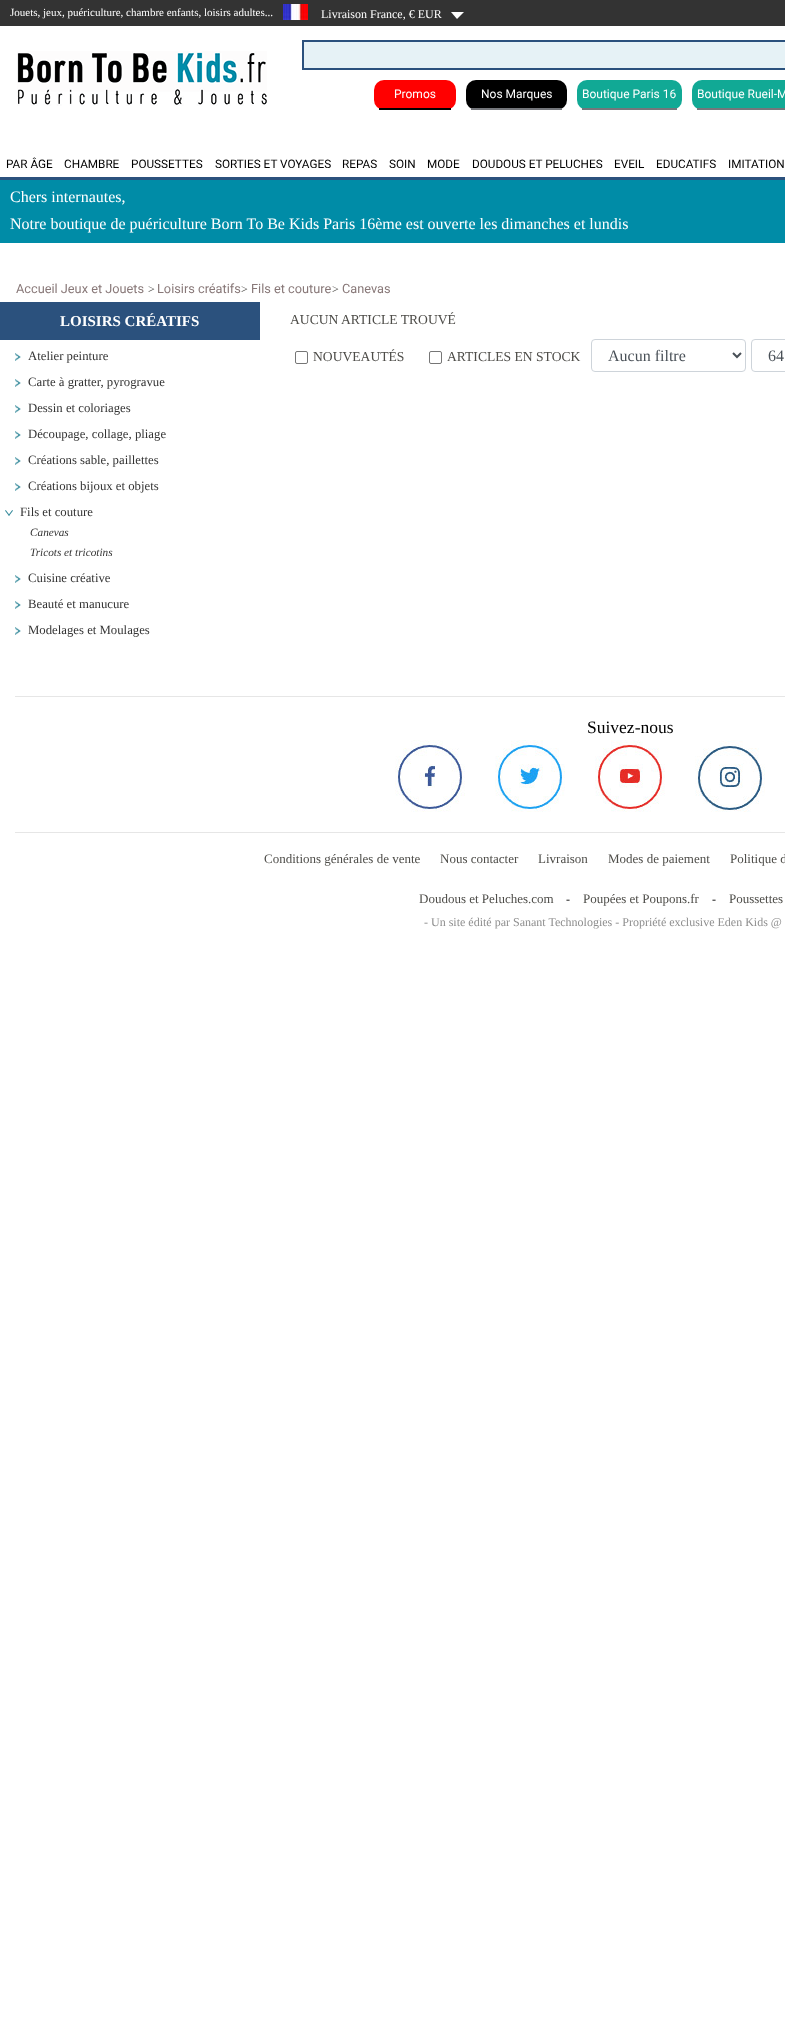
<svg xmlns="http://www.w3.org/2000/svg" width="785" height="2039">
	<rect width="100%" height="100%" fill="#FFFFFF" />
	<rect x="0" y="0" width="785" height="26" fill="#333333" />
	<text x="10" y="16" font-family="Liberation Serif" font-size="11" fill="#FFFFFF">Jouets, jeux, puériculture, chambre enfants, loisirs adultes...</text>
	<image x="283" y="4" width="25" height="16" href="assets/img1.png" />
	<text x="321" y="18" font-family="Liberation Serif" font-size="12" fill="#FFFFFF">Livraison France, € EUR</text>
	<image x="451" y="12" width="13" height="7" href="assets/img2.png" />
	<image x="17" y="51" width="250" height="55" href="assets/img3.png" />
	<rect x="303" y="41" width="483" height="28" fill="#E6F2F6" stroke="#2B517D" stroke-width="2" />
	<rect x="374" y="80" width="82" height="30" rx="10" fill="#FF0000" />
	<rect x="379" y="108" width="72" height="2" fill="#000000" />
	<text x="394" y="98" font-family="Roboto" font-size="12" fill="#FFFFFF">Promos</text>
	<rect x="466" y="80" width="101" height="30" rx="10" fill="#000000" />
	<rect x="471" y="108" width="91" height="2" fill="#74767B" />
	<text x="481" y="98" font-family="Roboto" font-size="12" fill="#FFFFFF">Nos Marques</text>
	<rect x="577" y="80" width="105" height="30" rx="10" fill="#11A995" />
	<rect x="582" y="108" width="95" height="2" fill="#74767B" />
	<text x="582" y="98" font-family="Roboto" font-size="12" fill="#FFFFFF">Boutique Paris 16</text>
	<rect x="692" y="80" width="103" height="30" rx="10" fill="#11A995" />
	<rect x="697" y="108" width="88" height="2" fill="#74767B" />
	<text x="697" y="98" font-family="Roboto" font-size="12" fill="#FFFFFF">Boutique Rueil-M</text>
	<rect x="0" y="177" width="785" height="3" fill="#2B517D" />
	<g font-family="Roboto" font-size="11.75" fill="#000000">
		<text x="6" y="168">PAR ÂGE</text>
		<text x="64" y="168">CHAMBRE</text>
		<text x="131" y="168">POUSSETTES</text>
		<text x="215" y="168">SORTIES ET VOYAGES</text>
		<text x="342" y="168">REPAS</text>
		<text x="389" y="168">SOIN</text>
		<text x="427" y="168">MODE</text>
		<text x="472" y="168">DOUDOUS ET PELUCHES</text>
		<text x="614" y="168">EVEIL</text>
		<text x="656" y="168">EDUCATIFS</text>
		<text x="728" y="168">IMITATION</text>
	</g>
	<rect x="0" y="180" width="785" height="63" fill="#008CA7" />
	<g font-family="Liberation Serif" font-size="16" fill="#FFFFFF">
		<text x="10" y="202">Chers internautes,</text>
		<text x="10" y="229">Notre boutique de puériculture Born To Be Kids Paris 16ème est ouverte les dimanches et lundis</text>
	</g>
	<text x="16" y="293" font-family="Roboto" font-size="12.75" fill="#887878">Accueil Jeux et Jouets</text>
	<text x="148" y="293" font-family="Liberation Serif" font-size="12" fill="#4E4D49">&gt;</text>
	<text x="157" y="293" font-family="Roboto" font-size="12.75" fill="#887878">Loisirs créatifs</text>
	<text x="241" y="293" font-family="Liberation Serif" font-size="12" fill="#4E4D49">&gt;</text>
	<text x="251" y="293" font-family="Roboto" font-size="12.75" fill="#887878">Fils et couture</text>
	<text x="332" y="293" font-family="Liberation Serif" font-size="12" fill="#4E4D49">&gt;</text>
	<text x="342" y="293" font-family="Roboto" font-size="12.75" fill="#887878">Canevas</text>
	<rect x="0" y="302" width="260" height="38" fill="#2B517D" />
	<text x="60" y="326" font-family="Liberation Serif" font-size="15" font-weight="700" fill="#FFFFFF">LOISIRS CRÉATIFS</text>
	<image x="15" y="353" width="6" height="8" href="assets/img4.png" />
	<text x="28" y="360" font-family="Liberation Serif" font-size="12.75" fill="#333333">Atelier peinture</text>
	<image x="15" y="379" width="6" height="8" href="assets/img4.png" />
	<text x="28" y="386" font-family="Liberation Serif" font-size="12.75" fill="#333333">Carte à gratter, pyrogravue</text>
	<image x="15" y="405" width="6" height="8" href="assets/img4.png" />
	<text x="28" y="412" font-family="Liberation Serif" font-size="12.75" fill="#333333">Dessin et coloriages</text>
	<image x="15" y="431" width="6" height="8" href="assets/img4.png" />
	<text x="28" y="438" font-family="Liberation Serif" font-size="12.75" fill="#333333">Découpage, collage, pliage</text>
	<image x="15" y="457" width="6" height="8" href="assets/img4.png" />
	<text x="28" y="464" font-family="Liberation Serif" font-size="12.75" fill="#333333">Créations sable, paillettes</text>
	<image x="15" y="483" width="6" height="8" href="assets/img4.png" />
	<text x="28" y="490" font-family="Liberation Serif" font-size="12.75" fill="#333333">Créations bijoux et objets</text>
	<image x="5" y="510" width="8" height="6" href="assets/img5.png" />
	<text x="20" y="516" font-family="Liberation Serif" font-size="12.75" fill="#333333">Fils et couture</text>
	<g font-family="Liberation Serif" font-size="11.25" font-style="italic" fill="#333333">
		<text x="30" y="536">Canevas</text>
		<text x="30" y="556">Tricots et tricotins</text>
	</g>
	<image x="15" y="575" width="6" height="8" href="assets/img4.png" />
	<text x="28" y="582" font-family="Liberation Serif" font-size="12.75" fill="#333333">Cuisine créative</text>
	<image x="15" y="601" width="6" height="8" href="assets/img4.png" />
	<text x="28" y="608" font-family="Liberation Serif" font-size="12.75" fill="#333333">Beauté et manucure</text>
	<image x="15" y="627" width="6" height="8" href="assets/img4.png" />
	<text x="28" y="634" font-family="Liberation Serif" font-size="12.75" fill="#333333">Modelages et Moulages</text>
	<text x="290" y="324" font-family="Liberation Serif" font-size="13.6" fill="#4E4D49">AUCUN ARTICLE TROUVÉ</text>
	<rect x="295.5" y="351.5" width="12" height="12" rx="1.5" fill="none" stroke="#767676" />
	<text x="313" y="361" font-family="Liberation Serif" font-size="13.6" fill="#4E4D49">NOUVEAUTÉS</text>
	<rect x="429.5" y="351.5" width="12" height="12" rx="1.5" fill="none" stroke="#767676" />
	<text x="447" y="361" font-family="Liberation Serif" font-size="13.6" fill="#4E4D49">ARTICLES EN STOCK</text>
	<rect x="591.5" y="339.5" width="154" height="32" rx="3.5" fill="none" stroke="#CED4DA" />
	<path d="M733 353L737 357L741 353" fill="none" stroke="#495057" stroke-width="2" />
	<text x="608" y="361" font-family="Liberation Serif" font-size="16" fill="#495057">Aucun filtre</text>
	<rect x="751.5" y="339.5" width="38" height="32" rx="3.5" fill="none" stroke="#CED4DA" />
	<text x="768" y="361" font-family="Liberation Serif" font-size="16" fill="#495057">64</text>
	<rect x="15" y="696" width="770" height="1" fill="#E6E6E6" />
	<text x="587" y="733" font-family="Liberation Serif" font-size="17.5" fill="#000000">Suivez-nous</text>
	<image x="395" y="740" width="70" height="72" href="assets/img6.png" />
	<image x="495" y="740" width="70" height="72" href="assets/img7.png" />
	<image x="595" y="740" width="70" height="72" href="assets/img8.png" />
	<image x="695" y="740" width="70" height="72" href="assets/img9.png" />
	<rect x="15" y="832" width="770" height="1" fill="#E6E6E6" />
	<g font-family="Liberation Serif" font-size="13" fill="#4E4D49">
		<text x="264" y="863">Conditions générales de vente</text>
		<text x="440" y="863">Nous contacter</text>
		<text x="538" y="863">Livraison</text>
		<text x="608" y="863">Modes de paiement</text>
		<text x="730" y="863">Politique d</text>
		<text x="419" y="903">Doudous et Peluches.com</text>
	</g>
	<text x="566" y="903" font-family="Liberation Serif" font-size="12" fill="#000000">-</text>
	<text x="583" y="903" font-family="Liberation Serif" font-size="13" fill="#4E4D49">Poupées et Poupons.fr</text>
	<text x="712" y="903" font-family="Liberation Serif" font-size="12" fill="#000000">-</text>
	<text x="729" y="903" font-family="Liberation Serif" font-size="13" fill="#4E4D49">Poussettes</text>
	<text x="424" y="926" font-family="Liberation Serif" font-size="12" fill="#8E8E8E">- Un site édité par Sanant Technologies - Propriété exclusive Eden Kids @</text>
</svg>
